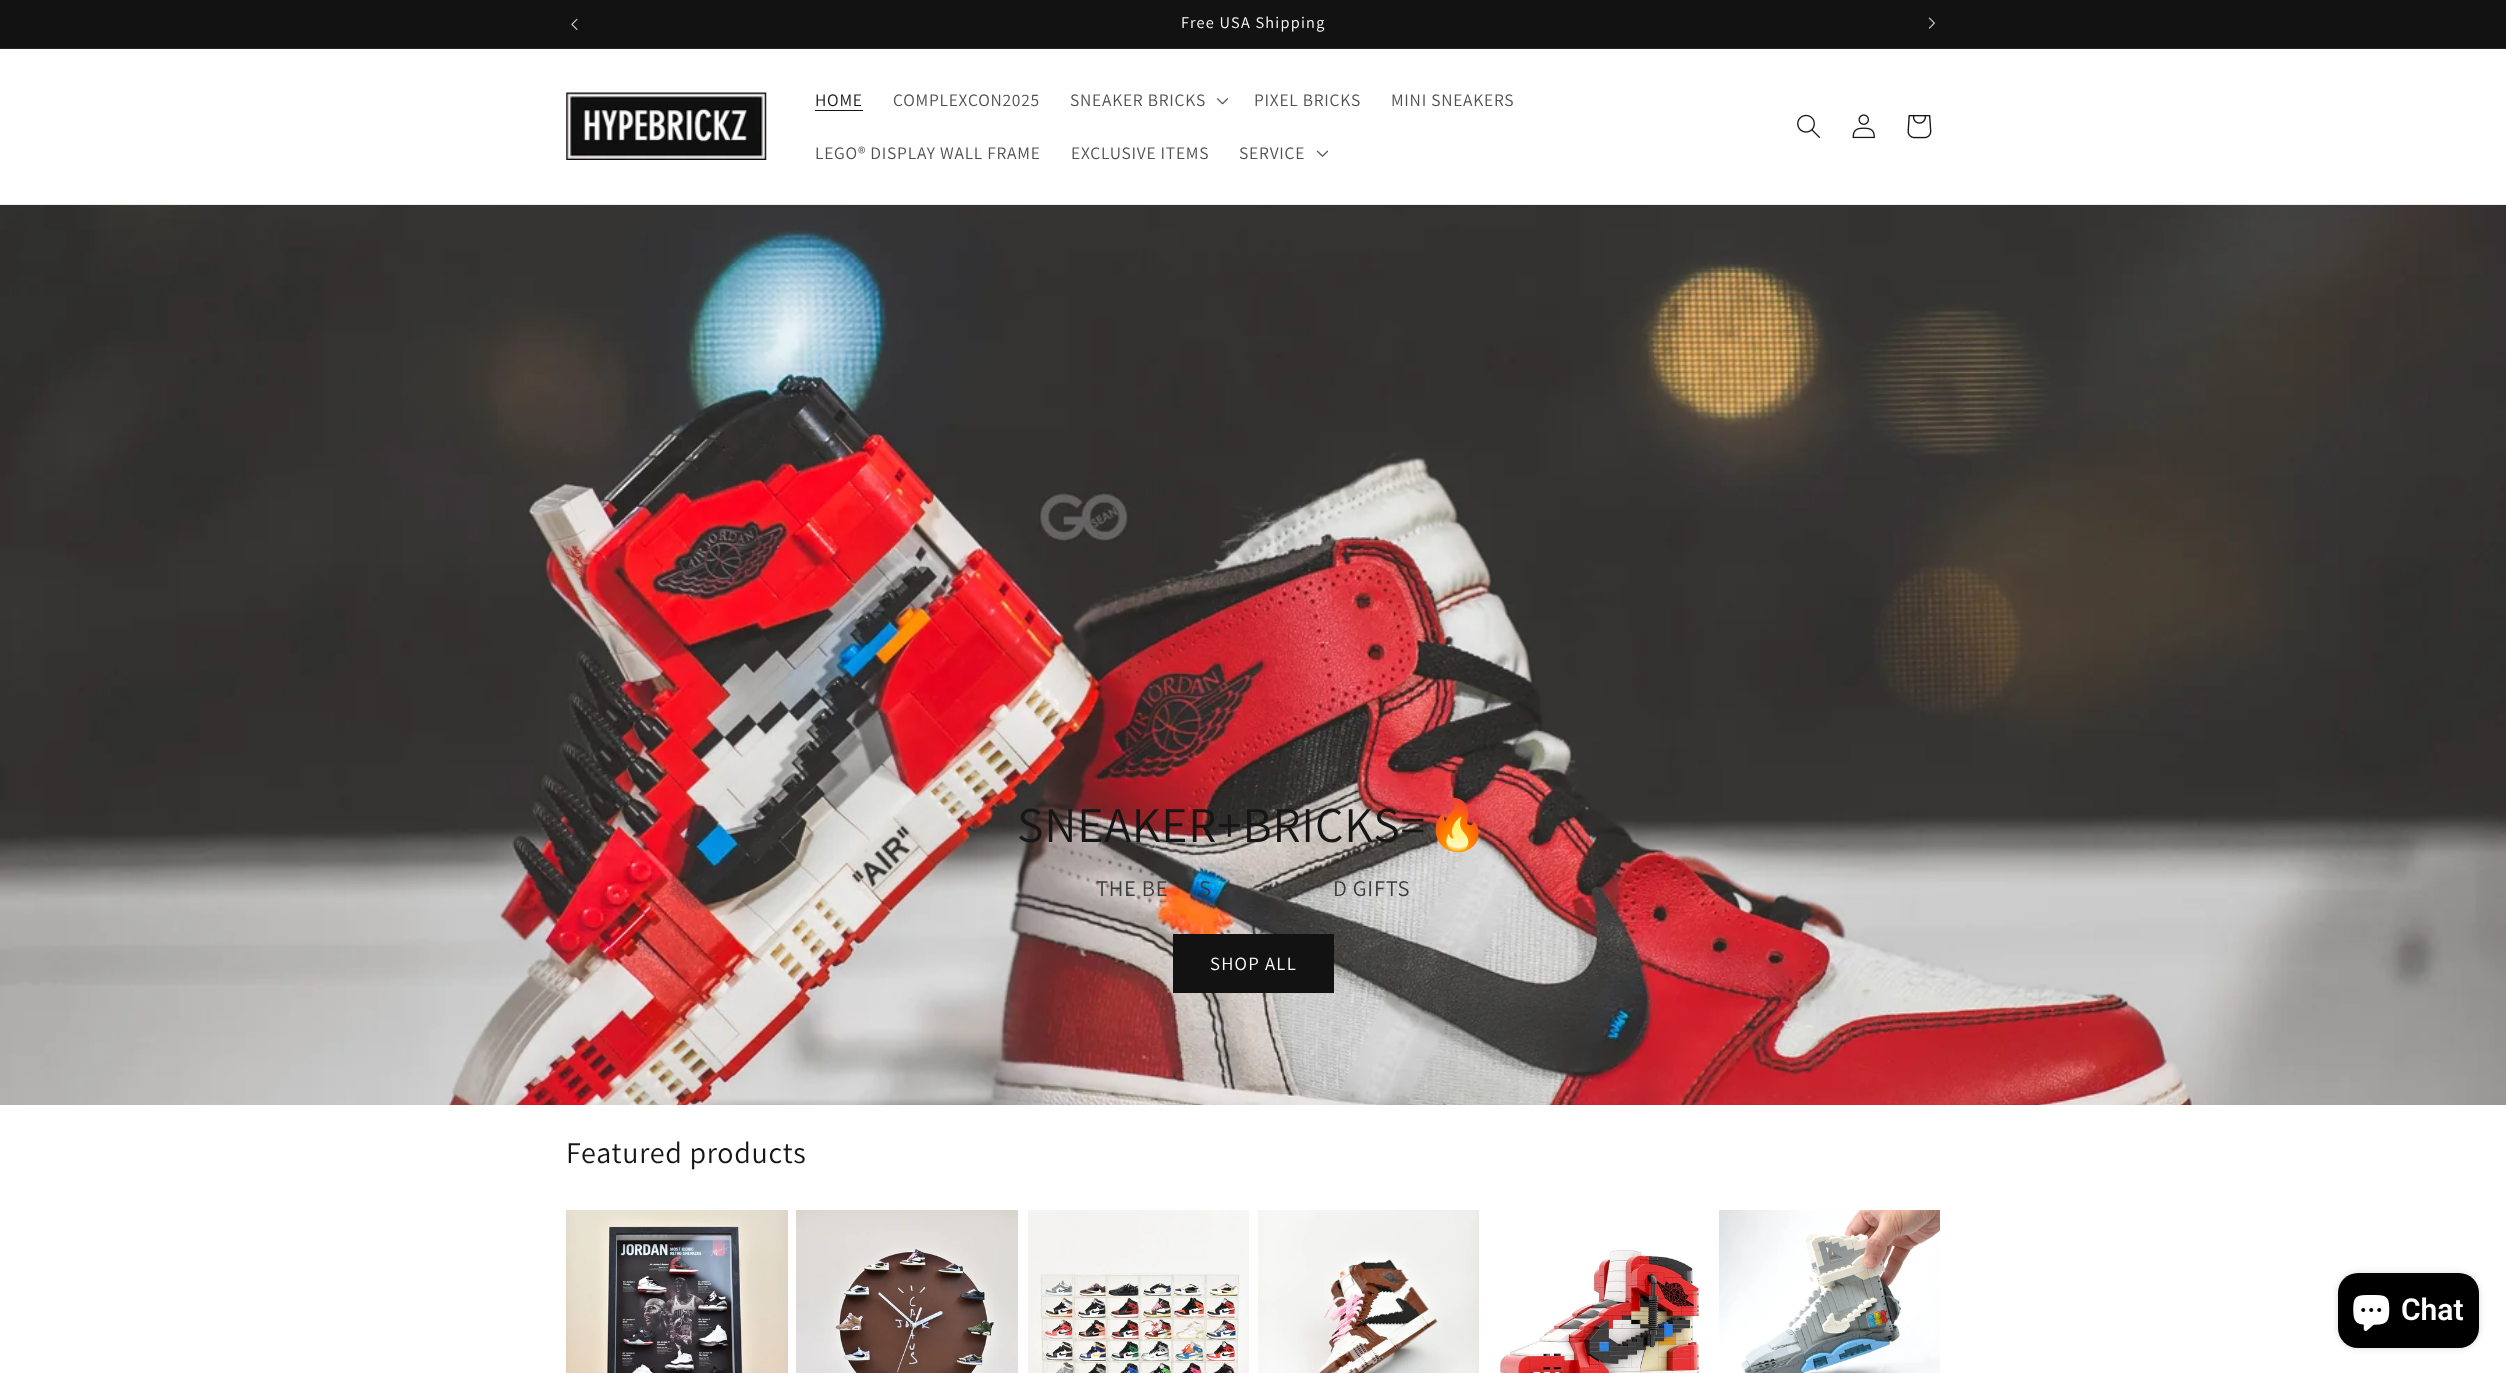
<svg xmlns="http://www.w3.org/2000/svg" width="2506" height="1373">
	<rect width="100%" height="100%" fill="#FFFFFF" />
	<rect x="0" y="0" width="2506" height="48" fill="#121212" />
	<rect x="0" y="48" width="2506" height="1" fill="#252525" />
	<image x="571" y="18" width="7" height="12" href="assets/img1.png" />
	<text x="1181" y="28" font-family="Assistant" font-size="16.25" letter-spacing="1.25" fill="#FFFFFF">Free USA Shipping</text>
	<image x="1928" y="17" width="7" height="12" href="assets/img2.png" />
	<rect x="0" y="204" width="2506" height="1" fill="#ECECEC" />
	<image x="566" y="92" width="201" height="68" href="assets/img3.png" />
	<text x="815" y="106" font-family="Assistant" font-size="17.5" letter-spacing="0.75" fill="#161616">HOME</text>
	<rect x="815" y="110" width="48" height="1" fill="#161616" />
	<g font-family="Assistant" font-size="17.5" letter-spacing="0.75" fill="#505050">
		<text x="893" y="106">COMPLEXCON2025</text>
		<text x="1070" y="106">SNEAKER BRICKS</text>
	</g>
	<image x="1216" y="98" width="13" height="7" href="assets/img4.png" />
	<g font-family="Assistant" font-size="17.5" letter-spacing="0.75" fill="#505050">
		<text x="1254" y="106">PIXEL BRICKS</text>
		<text x="1391" y="106">MINI SNEAKERS</text>
		<text x="815" y="159">LEGO® DISPLAY WALL FRAME</text>
		<text x="1071" y="159">EXCLUSIVE ITEMS</text>
		<text x="1239" y="159">SERVICE</text>
	</g>
	<image x="1316" y="150" width="13" height="7" href="assets/img5.png" />
	<image x="1797" y="114" width="23" height="24" href="assets/img6.png" />
	<image x="1852" y="114" width="23" height="25" href="assets/img7.png" />
	<image x="1907" y="115" width="25" height="24" href="assets/img8.png" />
	<image x="0" y="205" width="2506" height="900" href="assets/img9.png" />
	<text x="1017" y="842" font-family="Assistant" font-size="50" letter-spacing="0.75" fill="#161616">SNEAKER+BRICKS=</text>
	<text x="1426" y="842" font-family="Noto Color Emoji" font-size="50" letter-spacing="0.75" fill="#161616">🔥</text>
	<g font-family="Assistant" font-size="22.5" letter-spacing="0.75" fill="#3A3B3B">
		<text x="1096" y="896">THE BE</text>
		<text x="1199" y="896">S</text>
		<text x="1333" y="896">D GIFTS</text>
	</g>
	<rect x="1173" y="934" width="161" height="59" fill="#121212" />
	<text x="1210" y="970" font-family="Assistant" font-size="18.75" letter-spacing="1.25" fill="#FFFFFF">SHOP ALL</text>
	<text x="566" y="1163" font-family="Assistant" font-size="30" letter-spacing="0.75" fill="#161616">Featured products</text>
	<image x="566" y="1210" width="222" height="163" href="assets/img10.png" />
	<image x="796" y="1210" width="222" height="163" href="assets/img11.png" />
	<image x="1028" y="1210" width="221" height="163" href="assets/img12.png" />
	<image x="1258" y="1210" width="221" height="163" href="assets/img13.png" />
	<image x="1489" y="1210" width="220" height="163" href="assets/img14.png" />
	<image x="1719" y="1210" width="221" height="163" href="assets/img15.png" />
	<rect x="2338" y="1273" width="141" height="75" rx="20" fill="#000000" fill-opacity="0.15" filter="blur(3px)" />
	<rect x="2338" y="1273" width="141" height="75" rx="20" fill="#000000" />
	<image x="2353" y="1295" width="37" height="36" href="assets/img16.png" />
	<text x="2401" y="1320" font-family="Roboto" font-size="30" font-weight="600" fill="#FFFFFF">Chat</text>
</svg>
